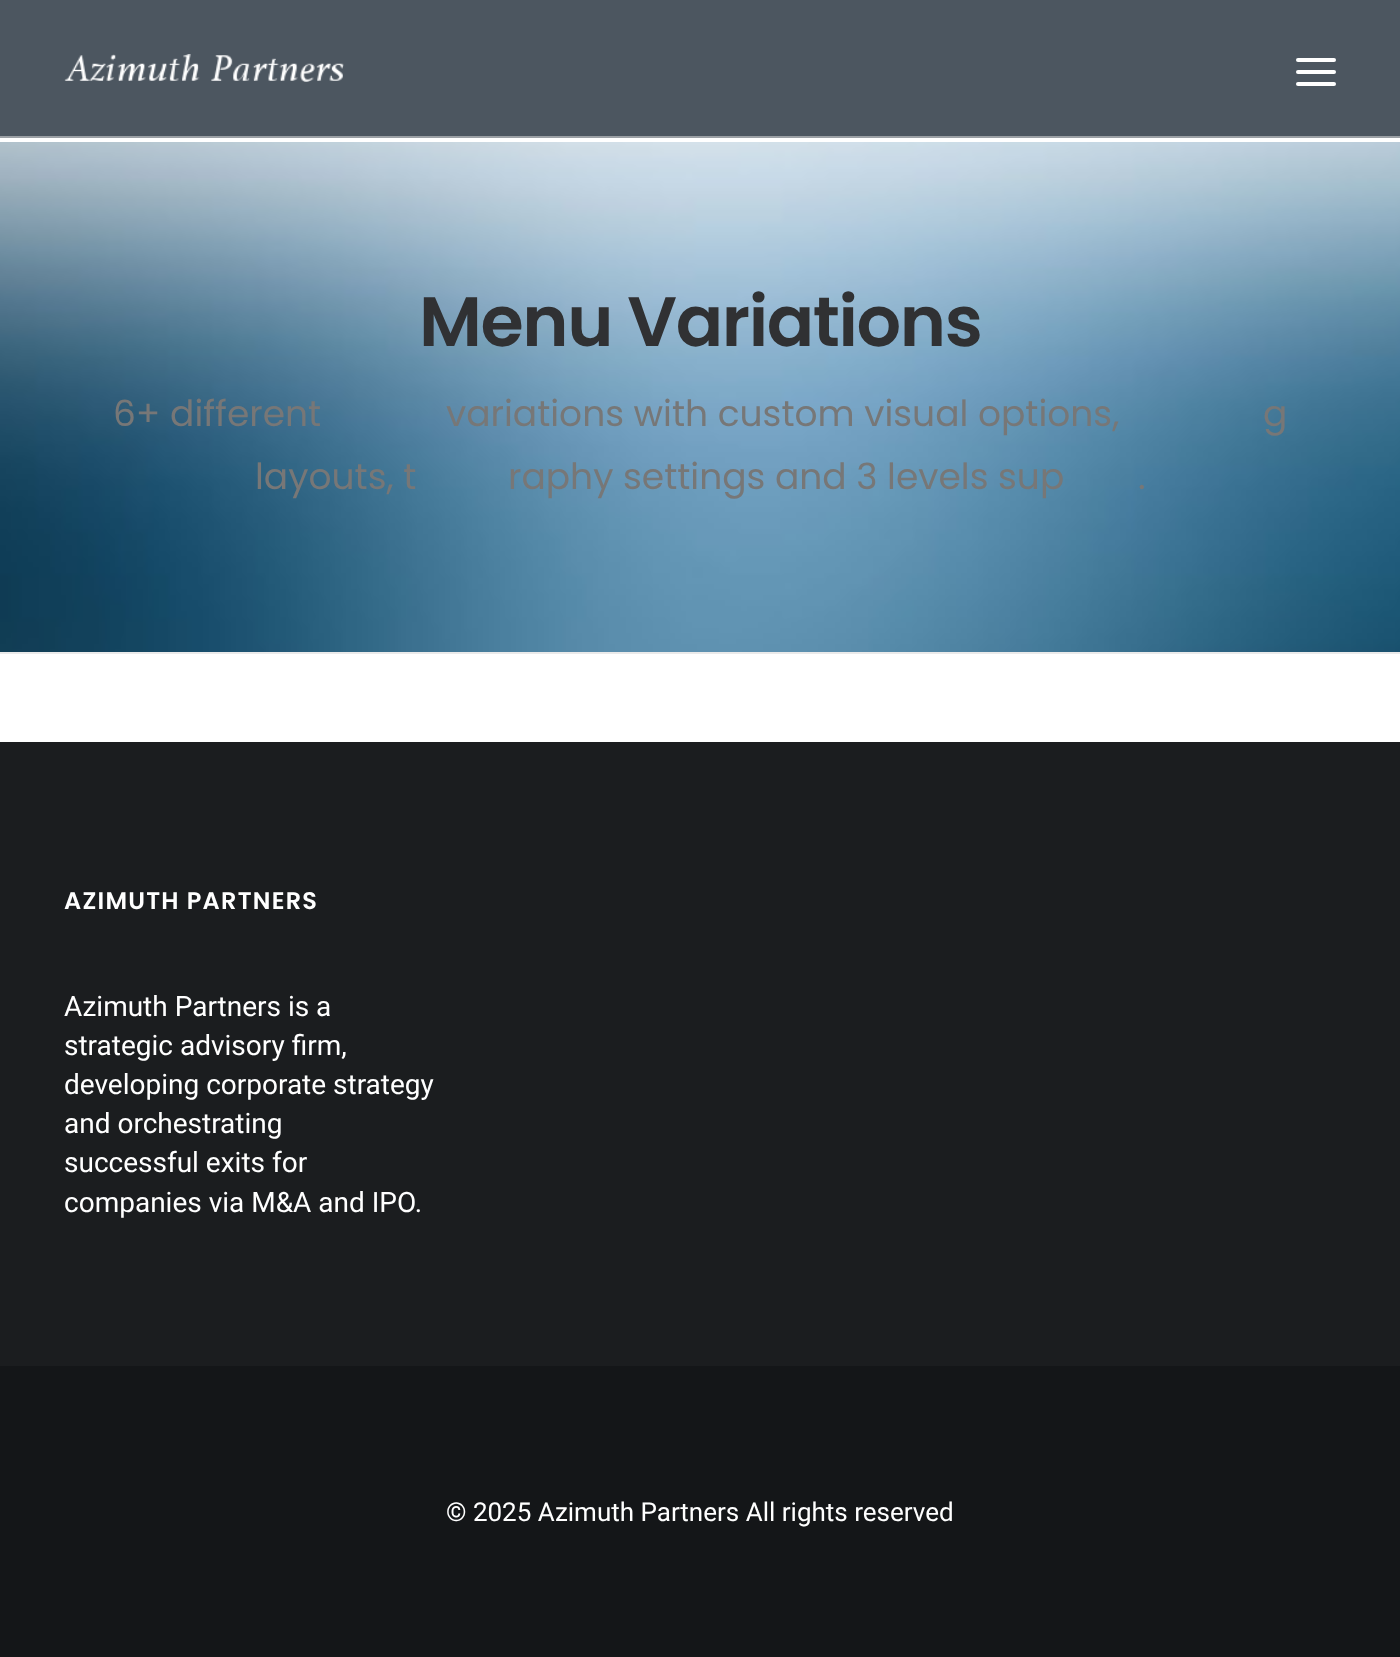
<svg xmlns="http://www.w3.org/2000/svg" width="1400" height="1657">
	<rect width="100%" height="100%" fill="#141618" />
	<rect x="0" y="0" width="1400" height="136" fill="#4C5660" />
	<rect x="0" y="138" width="1400" height="4" fill="#FFFFFF" />
	<rect x="0" y="136" width="1400" height="2" fill="#9BA0A5" />
	<image x="64" y="54" width="280" height="28" href="assets/img1.png" />
	<rect x="1296" y="70" width="40" height="4" rx="2" fill="#FFFFFF" />
	<rect x="1296" y="58" width="40" height="4" rx="2" fill="#FFFFFF" />
	<rect x="1296" y="82" width="40" height="4" rx="2" fill="#FFFFFF" />
	<rect x="0" y="654" width="1400" height="88" fill="#FFFFFF" />
	<rect x="0" y="652" width="1400" height="2" fill="#EAEAEA" />
	<image x="0" y="142" width="1400" height="510" href="assets/img2.png" />
	<text x="419" y="346" font-family="Poppins" font-size="70" font-weight="600" letter-spacing="-1.4" fill="#303133">Menu Variations</text>
	<g font-family="Poppins" font-size="36" fill="#777777">
		<text x="113" y="426">6+ different</text>
		<text x="446" y="426">variations with custom visual options,</text>
		<text x="1263" y="426">g</text>
		<text x="255" y="489">layouts, t</text>
		<text x="508" y="489">raphy settings and 3 levels sup</text>
		<text x="1138" y="489">.</text>
	</g>
	<rect x="0" y="742" width="1400" height="624" fill="#1B1D1F" />
	<text x="64" y="909" font-family="Poppins" font-size="24" font-weight="600" letter-spacing="1.25" fill="#FFFFFF">AZIMUTH PARTNERS</text>
	<g font-family="Roboto" font-size="28" fill="#FFFFFF">
		<text x="64" y="1016">Azimuth Partners is a</text>
		<text x="64" y="1055">strategic advisory firm,</text>
		<text x="64" y="1094">developing corporate strategy</text>
		<text x="64" y="1133">and orchestrating</text>
		<text x="64" y="1172">successful exits for</text>
		<text x="64" y="1212">companies via M&amp;A and IPO.</text>
	</g>
	<text x="446" y="1521" font-family="Roboto" font-size="26" fill="#FFFFFF">© 2025 Azimuth Partners All rights reserved</text>
</svg>
